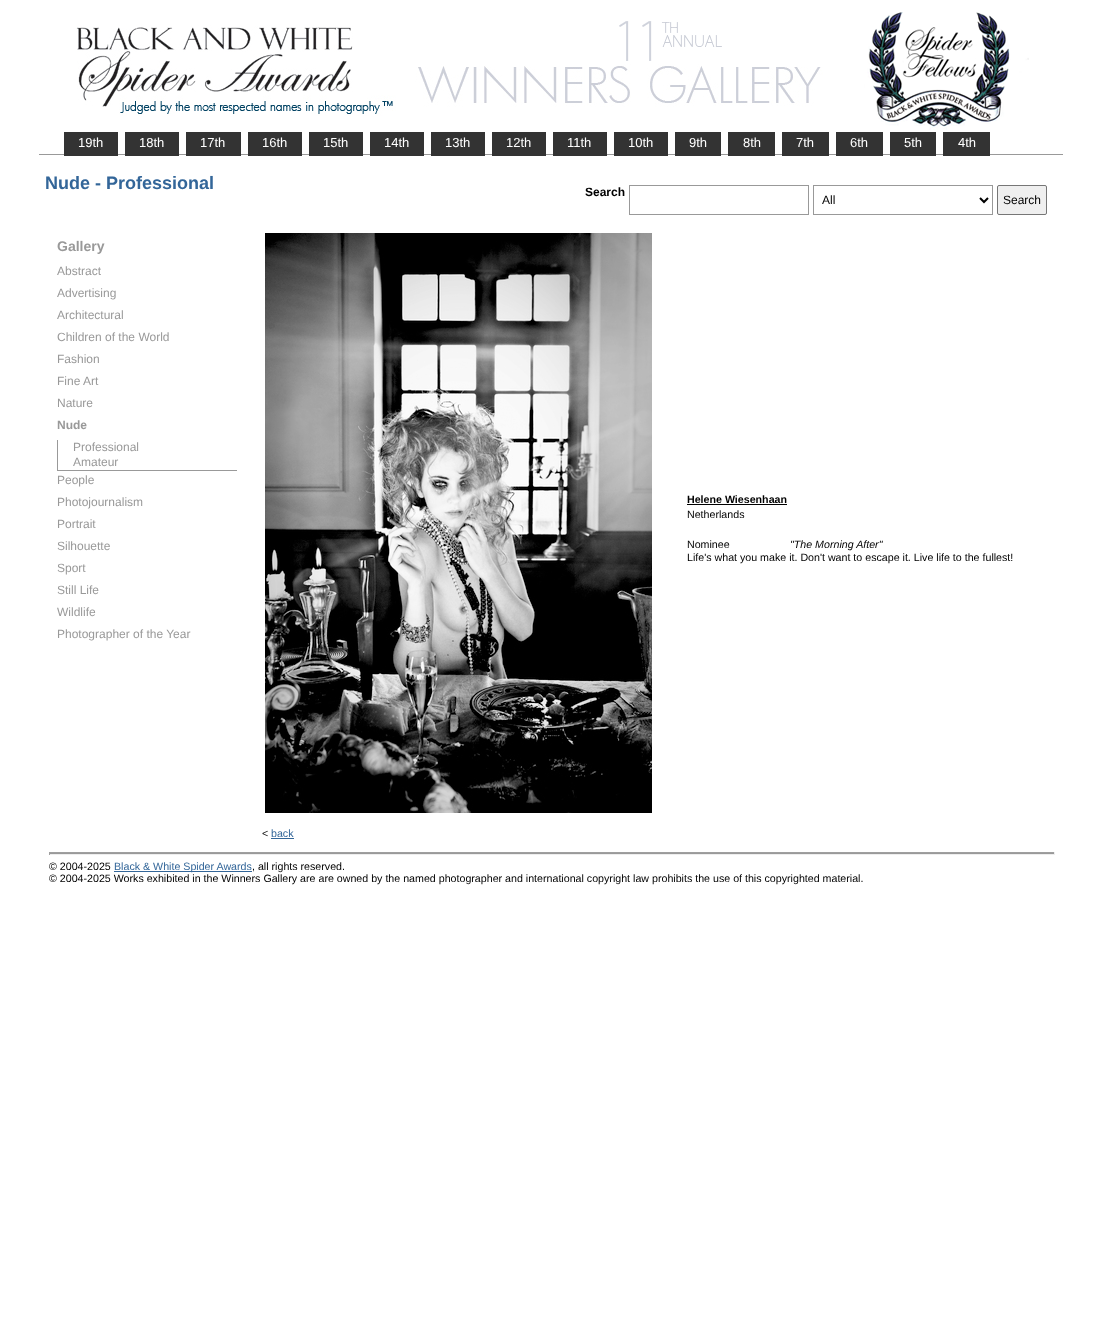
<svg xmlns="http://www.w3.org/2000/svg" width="1102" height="1344">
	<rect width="100%" height="100%" fill="#FFFFFF" />
	<image x="76" y="12" width="953" height="118" href="assets/img1.png" />
	<rect x="39" y="154" width="1024" height="1" fill="#999999" />
	<rect x="64" y="132" width="54" height="24" fill="#333333" />
	<text x="78" y="147" font-family="Liberation Sans" font-size="13" fill="#FFFFFF">19th</text>
	<rect x="125" y="132" width="54" height="24" fill="#333333" />
	<text x="139" y="147" font-family="Liberation Sans" font-size="13" fill="#FFFFFF">18th</text>
	<rect x="186" y="132" width="55" height="24" fill="#333333" />
	<text x="200" y="147" font-family="Liberation Sans" font-size="13" fill="#FFFFFF">17th</text>
	<rect x="248" y="132" width="54" height="24" fill="#333333" />
	<text x="262" y="147" font-family="Liberation Sans" font-size="13" fill="#FFFFFF">16th</text>
	<rect x="309" y="132" width="54" height="24" fill="#333333" />
	<text x="323" y="147" font-family="Liberation Sans" font-size="13" fill="#FFFFFF">15th</text>
	<rect x="370" y="132" width="54" height="24" fill="#333333" />
	<text x="384" y="147" font-family="Liberation Sans" font-size="13" fill="#FFFFFF">14th</text>
	<rect x="431" y="132" width="54" height="24" fill="#333333" />
	<text x="445" y="147" font-family="Liberation Sans" font-size="13" fill="#FFFFFF">13th</text>
	<rect x="492" y="132" width="54" height="24" fill="#333333" />
	<text x="506" y="147" font-family="Liberation Sans" font-size="13" fill="#FFFFFF">12th</text>
	<rect x="553" y="132" width="54" height="24" fill="#333333" />
	<text x="567" y="147" font-family="Liberation Sans" font-size="13" fill="#FFFFFF">11th</text>
	<rect x="614" y="132" width="54" height="24" fill="#333333" />
	<text x="628" y="147" font-family="Liberation Sans" font-size="13" fill="#FFFFFF">10th</text>
	<rect x="675" y="132" width="46" height="24" fill="#333333" />
	<text x="689" y="147" font-family="Liberation Sans" font-size="13" fill="#FFFFFF">9th</text>
	<rect x="728" y="132" width="47" height="24" fill="#333333" />
	<text x="743" y="147" font-family="Liberation Sans" font-size="13" fill="#FFFFFF">8th</text>
	<rect x="782" y="132" width="47" height="24" fill="#333333" />
	<text x="796" y="147" font-family="Liberation Sans" font-size="13" fill="#FFFFFF">7th</text>
	<rect x="836" y="132" width="47" height="24" fill="#333333" />
	<text x="850" y="147" font-family="Liberation Sans" font-size="13" fill="#FFFFFF">6th</text>
	<rect x="890" y="132" width="46" height="24" fill="#333333" />
	<text x="904" y="147" font-family="Liberation Sans" font-size="13" fill="#FFFFFF">5th</text>
	<rect x="943" y="132" width="47" height="24" fill="#333333" />
	<text x="958" y="147" font-family="Liberation Sans" font-size="13" fill="#FFFFFF">4th</text>
	<text x="45" y="189" font-family="Liberation Sans" font-size="18" font-weight="700" fill="#336699">Nude - Professional</text>
	<text x="585" y="196" font-family="Liberation Sans" font-size="12" font-weight="700" fill="#000000">Search</text>
	<rect x="629.5" y="185.5" width="179" height="29" fill="none" stroke="#999999" />
	<rect x="813.5" y="185.5" width="179" height="29" fill="none" stroke="#999999" />
	<path d="M980 198L984 202L988 198" fill="none" stroke="#000000" stroke-width="2" />
	<text x="822" y="204" font-family="Liberation Sans" font-size="12" fill="#000000">All</text>
	<rect x="997.5" y="185.5" width="49" height="29" rx="1.5" fill="#EFEFEF" stroke="#767676" />
	<text x="1003" y="204" font-family="Liberation Sans" font-size="12" fill="#000000">Search</text>
	<text x="57" y="251" font-family="Liberation Sans" font-size="14" font-weight="700" fill="#999999">Gallery</text>
	<g font-family="Liberation Sans" font-size="12" fill="#999999">
		<text x="57" y="275">Abstract</text>
		<text x="57" y="297">Advertising</text>
		<text x="57" y="319">Architectural</text>
		<text x="57" y="341">Children of the World</text>
		<text x="57" y="363">Fashion</text>
		<text x="57" y="385">Fine Art</text>
		<text x="57" y="407">Nature</text>
	</g>
	<text x="57" y="429" font-family="Liberation Sans" font-size="12" font-weight="700" fill="#999999">Nude</text>
	<rect x="57" y="470" width="180" height="1" fill="#999999" />
	<rect x="57" y="440" width="1" height="31" fill="#999999" />
	<g font-family="Liberation Sans" font-size="12" fill="#999999">
		<text x="73" y="451">Professional</text>
		<text x="73" y="466">Amateur</text>
		<text x="57" y="484">People</text>
		<text x="57" y="506">Photojournalism</text>
		<text x="57" y="528">Portrait</text>
		<text x="57" y="550">Silhouette</text>
		<text x="57" y="572">Sport</text>
		<text x="57" y="594">Still Life</text>
		<text x="57" y="616">Wildlife</text>
		<text x="57" y="638">Photographer of the Year</text>
	</g>
	<image x="265" y="233" width="387" height="580" href="assets/img2.png" />
	<text x="687" y="503" font-family="Liberation Sans" font-size="10.67" font-weight="700" fill="#000000">Helene Wiesenhaan</text>
	<rect x="687" y="504" width="100" height="1" fill="#000000" />
	<g font-family="Liberation Sans" font-size="10.67" fill="#000000">
		<text x="687" y="518">Netherlands</text>
		<text x="687" y="548">Nominee</text>
	</g>
	<text x="790" y="548" font-family="Liberation Sans" font-size="10.67" font-style="italic" fill="#000000">"The Morning After"</text>
	<g font-family="Liberation Sans" font-size="10.67" fill="#000000">
		<text x="687" y="561">Life's what you make it. Don't want to escape it. Live life to the fullest!</text>
		<text x="262" y="837">&lt;</text>
	</g>
	<text x="271" y="837" font-family="Liberation Sans" font-size="10.67" fill="#336699">back</text>
	<rect x="271" y="838" width="23" height="1" fill="#336699" />
	<rect x="49" y="853" width="1006" height="1" fill="#999999" />
	<rect x="49" y="852" width="1006" height="1" fill="#9F9F9F" />
	<rect x="1054" y="852" width="1" height="3" fill="#EEEEEE" />
	<rect x="49" y="854" width="1006" height="1" fill="#EEEEEE" />
	<rect x="49" y="852" width="1" height="3" fill="#9F9F9F" />
	<text x="49" y="870" font-family="Liberation Sans" font-size="10.67" fill="#000000">© 2004-2025</text>
	<rect x="114" y="871" width="138" height="1" fill="#336699" />
	<text x="114" y="870" font-family="Liberation Sans" font-size="10.67" fill="#336699">Black &amp; White Spider Awards</text>
	<g font-family="Liberation Sans" font-size="10.67" fill="#000000">
		<text x="252" y="870">, all rights reserved.</text>
		<text x="49" y="882">© 2004-2025 Works exhibited in the Winners Gallery are are owned by the named photographer and international copyright law prohibits the use of this copyrighted material.</text>
	</g>
</svg>
